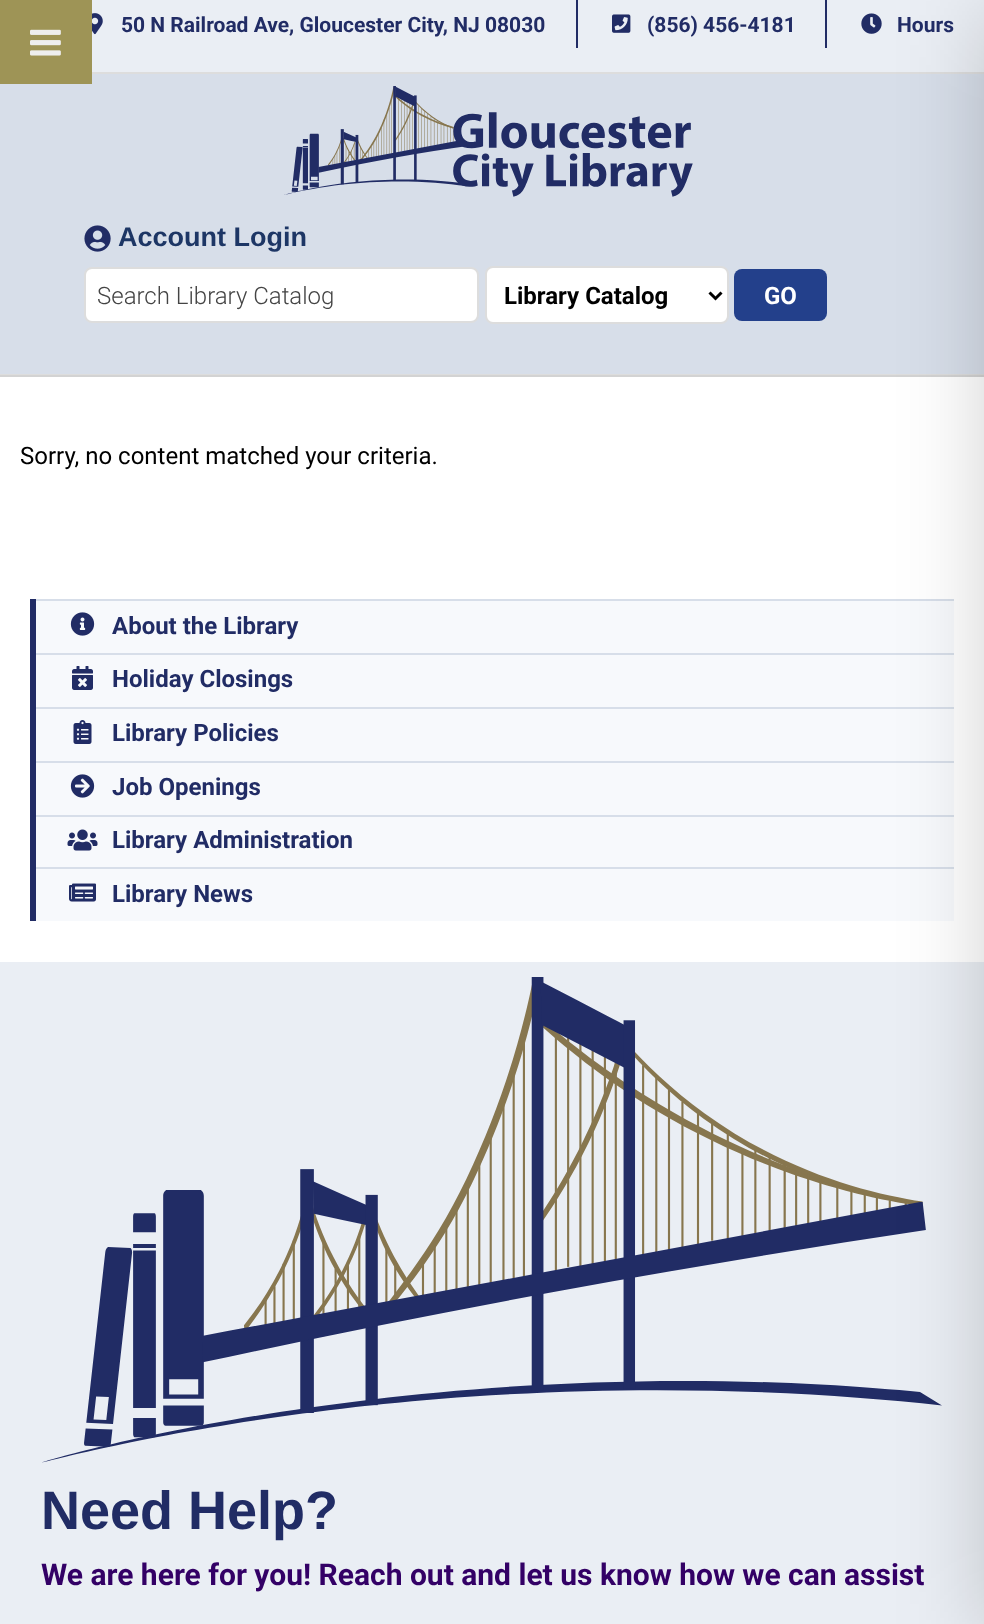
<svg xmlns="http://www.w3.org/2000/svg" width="984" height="1624">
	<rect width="100%" height="100%" fill="#FFFFFF" />
	<rect x="0" y="74" width="984" height="300" fill="#D7DEE9" />
	<rect x="0" y="0" width="92" height="84" fill="#9E9456" />
	<image x="30" y="29" width="31" height="27" href="assets/img1.png" />
	<rect x="92" y="0" width="892" height="72" fill="#EAEEF4" />
	<image x="861" y="13" width="21" height="21" href="assets/img4.png" />
	<rect x="92" y="72" width="892" height="2" fill="#DDDDDD" />
	<rect x="0" y="374" width="984" height="1" fill="#DDDDDD" />
	<rect x="0" y="375" width="984" height="2" fill="#D3D3D3" />
	<rect x="36" y="601" width="918" height="320" fill="#F7F9FC" />
	<rect x="36" y="599" width="918" height="2" fill="#D7DEE9" />
	<rect x="36" y="653" width="918" height="2" fill="#D7DEE9" />
	<rect x="36" y="707" width="918" height="2" fill="#D7DEE9" />
	<rect x="36" y="761" width="918" height="2" fill="#D7DEE9" />
	<rect x="36" y="815" width="918" height="2" fill="#D7DEE9" />
	<rect x="36" y="867" width="918" height="2" fill="#D7DEE9" />
	<rect x="0" y="962" width="984" height="662" fill="#EAEEF4" />
	<image x="42" y="977" width="900" height="486" href="assets/img13.png" />
	<rect x="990" y="15" width="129" height="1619" fill="#000000" fill-opacity="0.2" filter="blur(45px)" />
	<image x="92" y="13" width="11" height="22" href="assets/img2.png" />
	<text x="121" y="32" font-family="Roboto" font-size="21" font-weight="700" fill="#212C65">50 N Railroad Ave, Gloucester City, NJ 08030</text>
	<rect x="576" y="0" width="2" height="48" fill="#212C65" />
	<image x="612" y="14" width="19" height="19" href="assets/img3.png" />
	<text x="647" y="32" font-family="Roboto" font-size="21" font-weight="700" fill="#212C65">(856) 456-4181</text>
	<rect x="825" y="0" width="2" height="48" fill="#212C65" />
	<text x="897" y="32" font-family="Roboto" font-size="21" font-weight="700" fill="#212C65">Hours</text>
	<image x="284" y="86" width="409" height="111" href="assets/img5.png" />
	<image x="84" y="225" width="27" height="27" href="assets/img6.png" />
	<text x="118" y="246" font-family="Liberation Sans" font-size="27" font-weight="700" fill="#1D3665">Account Login</text>
	<rect x="85" y="268" width="393" height="54" rx="7" fill="#FFFFFF" stroke="#DDDDDD" stroke-width="2" />
	<text x="97" y="304" font-family="Roboto" font-size="24" font-weight="300" fill="#444444">Search Library Catalog</text>
	<rect x="486" y="267" width="242" height="56" rx="7" fill="#FFFFFF" stroke="#DDDDDD" stroke-width="2" />
	<path d="M709.5 292.5L715.5 298.5L721.5 292.5" fill="none" stroke="#000000" stroke-width="3" />
	<text x="504" y="304" font-family="Roboto" font-size="24" font-weight="700" fill="#000000">Library Catalog</text>
	<rect x="734" y="269" width="93" height="52" rx="8" fill="#23408B" />
	<text x="764" y="304" font-family="Roboto" font-size="24" font-weight="700" fill="#FFFFFF">GO</text>
	<text x="20" y="464" font-family="Roboto" font-size="24" fill="#000000">Sorry, no content matched your criteria.</text>
	<rect x="30" y="599" width="6" height="322" fill="#212C65" />
	<image x="70" y="612" width="25" height="24" href="assets/img7.png" />
	<text x="112" y="634" font-family="Roboto" font-size="24" font-weight="700" fill="#212C65">About the Library</text>
	<image x="72" y="666" width="21" height="24" href="assets/img8.png" />
	<text x="112" y="687" font-family="Roboto" font-size="24" font-weight="700" fill="#212C65">Holiday Closings</text>
	<image x="73" y="720" width="19" height="24" href="assets/img9.png" />
	<text x="112" y="741" font-family="Roboto" font-size="24" font-weight="700" fill="#212C65">Library Policies</text>
	<image x="70" y="774" width="25" height="24" href="assets/img10.png" />
	<text x="112" y="795" font-family="Roboto" font-size="24" font-weight="700" fill="#212C65">Job Openings</text>
	<image x="67" y="829" width="31" height="22" href="assets/img11.png" />
	<text x="112" y="848" font-family="Roboto" font-size="24" font-weight="700" fill="#212C65">Library Administration</text>
	<image x="69" y="883" width="27" height="19" href="assets/img12.png" />
	<text x="112" y="902" font-family="Roboto" font-size="24" font-weight="700" fill="#212C65">Library News</text>
	<text x="41" y="1529" font-family="Liberation Sans" font-size="54" font-weight="700" fill="#212C65">Need Help?</text>
	<text x="41" y="1585" font-family="Roboto" font-size="30" font-weight="700" fill="#330066">We are here for you! Reach out and let us know how we can assist</text>
</svg>
